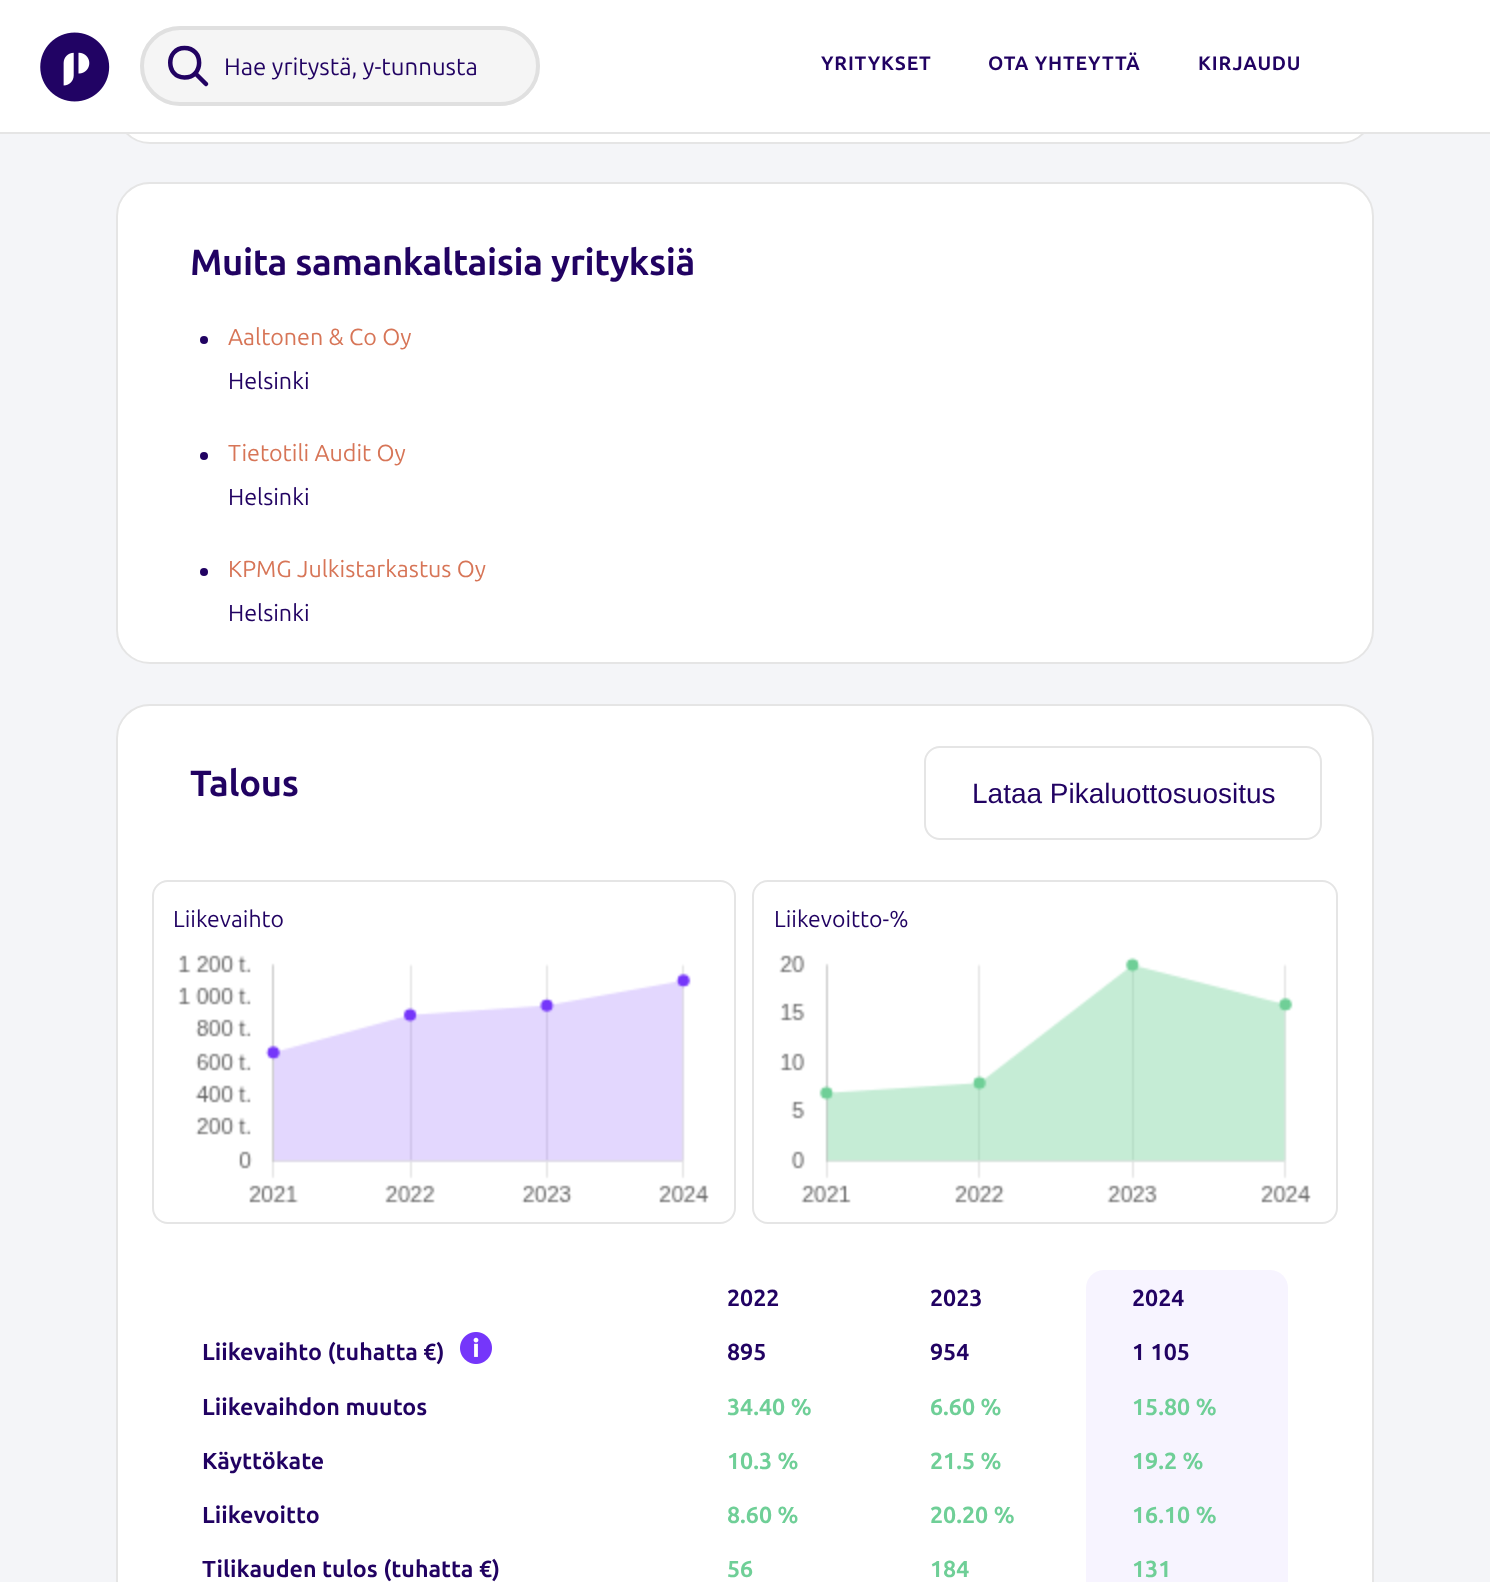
<svg xmlns="http://www.w3.org/2000/svg" width="1490" height="1582">
	<rect width="100%" height="100%" fill="#F4F5F8" />
	<rect x="117" y="-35" width="1256" height="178" rx="33" fill="#FFFFFF" stroke="#E5E5E5" stroke-width="2" />
	<rect x="0" y="0" width="1490" height="132" fill="#FFFFFF" />
	<rect x="0" y="132" width="1490" height="2" fill="#E5E5E5" />
	<image x="40" y="32" width="70" height="70" href="assets/img1.png" />
	<rect x="140" y="26" width="400" height="80" rx="40" fill="#F5F5F5" />
	<path d="M184.5 48C165.5 48 165.5 77.5 184.5 77.5C204 77.5 204 48 184.5 48Z" fill="none" stroke="#210262" stroke-width="4.5" />
	<path d="M195.5 73.5L206 84" fill="none" stroke="#210262" stroke-width="4.5" stroke-linecap="round" />
	<rect x="142" y="28" width="396" height="76" rx="38" fill="none" stroke="#E0E0E0" stroke-width="4" />
	<text x="224" y="75" font-family="Ubuntu" font-size="24" fill="#210262">Hae yritystä, y-tunnusta</text>
	<g font-family="Ubuntu" font-size="19.5" font-weight="700" letter-spacing="0.8" fill="#210262">
		<text x="821" y="70">YRITYKSET</text>
		<text x="988" y="70">OTA YHTEYTTÄ</text>
		<text x="1198" y="70">KIRJAUDU</text>
	</g>
	<rect x="117" y="183" width="1256" height="480" rx="33" fill="#FFFFFF" stroke="#E5E5E5" stroke-width="2" />
	<text x="190" y="275" font-family="Ubuntu" font-size="36.4" font-weight="700" letter-spacing="-0.35" fill="#210262">Muita samankaltaisia yrityksiä</text>
	<circle cx="204" cy="340" r="4" fill="#210262" />
	<text x="228" y="345" font-family="Ubuntu" font-size="23.25" fill="#D77557">Aaltonen &amp; Co Oy</text>
	<text x="228" y="389" font-family="Ubuntu" font-size="23.25" fill="#210262">Helsinki</text>
	<circle cx="204" cy="456" r="4" fill="#210262" />
	<text x="228" y="461" font-family="Ubuntu" font-size="23.25" fill="#D77557">Tietotili Audit Oy</text>
	<text x="228" y="505" font-family="Ubuntu" font-size="23.25" fill="#210262">Helsinki</text>
	<circle cx="204" cy="572" r="4" fill="#210262" />
	<text x="228" y="577" font-family="Ubuntu" font-size="23.25" fill="#D77557">KPMG Julkistarkastus Oy</text>
	<text x="228" y="621" font-family="Ubuntu" font-size="23.25" fill="#210262">Helsinki</text>
	<rect x="117" y="705" width="1256" height="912" rx="33" fill="#FFFFFF" stroke="#E5E5E5" stroke-width="2" />
	<text x="190" y="796" font-family="Ubuntu" font-size="36.4" font-weight="700" letter-spacing="-0.35" fill="#210262">Talous</text>
	<rect x="925" y="747" width="396" height="92" rx="15" fill="none" stroke="#E5E5E5" stroke-width="2" />
	<text x="972" y="803" font-family="Liberation Sans" font-size="28" fill="#210262">Lataa Pikaluottosuositus</text>
	<rect x="153" y="881" width="582" height="342" rx="15" fill="none" stroke="#E5E5E5" stroke-width="2" />
	<text x="173" y="927" font-family="Ubuntu" font-size="23" fill="#210262">Liikevaihto</text>
	<image x="178" y="955" width="531" height="248" href="assets/img2.png" />
	<rect x="753" y="881" width="584" height="342" rx="15" fill="none" stroke="#E5E5E5" stroke-width="2" />
	<text x="774" y="927" font-family="Ubuntu" font-size="23" fill="#210262">Liikevoitto-%</text>
	<image x="779" y="955" width="532" height="248" href="assets/img3.png" />
	<g font-family="Ubuntu" font-size="23.25" font-weight="700" fill="#210262">
		<text x="727" y="1306">2022</text>
		<text x="930" y="1306">2023</text>
	</g>
	<path d="M1104 1270H1270C1280 1270 1288 1278 1288 1288V1324H1086V1288C1086 1278 1094 1270 1104 1270Z" fill="#F7F4FF" />
	<g font-family="Ubuntu" font-size="23.25" font-weight="700" fill="#210262">
		<text x="1132" y="1306">2024</text>
		<text x="202" y="1360">Liikevaihto (tuhatta €)</text>
	</g>
	<image x="460" y="1332" width="32" height="32" href="assets/img4.png" />
	<g font-family="Ubuntu" font-size="23.25" font-weight="700" fill="#210262">
		<text x="727" y="1360">895</text>
		<text x="930" y="1360">954</text>
	</g>
	<rect x="1086" y="1324" width="202" height="258" fill="#F7F4FF" />
	<g font-family="Ubuntu" font-size="23.25" font-weight="700" fill="#210262">
		<text x="1132" y="1360">1 105</text>
		<text x="202" y="1415">Liikevaihdon muutos</text>
	</g>
	<g font-family="Ubuntu" font-size="23.25" font-weight="700" fill="#6FCF97">
		<text x="727" y="1415">34.40 %</text>
		<text x="930" y="1415">6.60 %</text>
		<text x="1132" y="1415">15.80 %</text>
	</g>
	<text x="202" y="1469" font-family="Ubuntu" font-size="23.25" font-weight="700" fill="#210262">Käyttökate</text>
	<g font-family="Ubuntu" font-size="23.25" font-weight="700" fill="#6FCF97">
		<text x="727" y="1469">10.3 %</text>
		<text x="930" y="1469">21.5 %</text>
		<text x="1132" y="1469">19.2 %</text>
	</g>
	<text x="202" y="1523" font-family="Ubuntu" font-size="23.25" font-weight="700" fill="#210262">Liikevoitto</text>
	<g font-family="Ubuntu" font-size="23.25" font-weight="700" fill="#6FCF97">
		<text x="727" y="1523">8.60 %</text>
		<text x="930" y="1523">20.20 %</text>
		<text x="1132" y="1523">16.10 %</text>
	</g>
	<text x="202" y="1577" font-family="Ubuntu" font-size="23.25" font-weight="700" fill="#210262">Tilikauden tulos (tuhatta €)</text>
	<g font-family="Ubuntu" font-size="23.25" font-weight="700" fill="#6FCF97">
		<text x="727" y="1577">56</text>
		<text x="930" y="1577">184</text>
		<text x="1132" y="1577">131</text>
	</g>
</svg>
